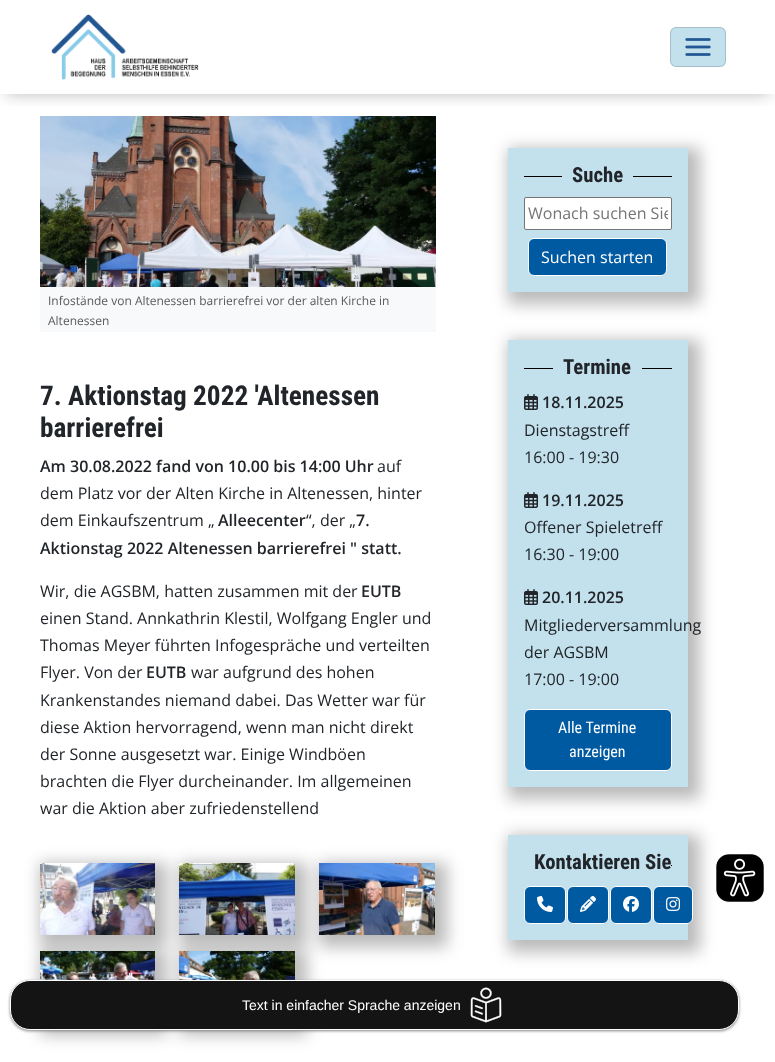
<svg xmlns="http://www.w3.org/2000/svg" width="775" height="1062">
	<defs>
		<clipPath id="clip1"><rect x="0" y="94" width="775" height="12" /></clipPath>
		<clipPath id="clip2"><rect x="528" y="202" width="140" height="22" /></clipPath>
	</defs>
	<rect width="100%" height="100%" fill="#FFFFFF" />
	<image x="40" y="116" width="396" height="171" href="assets/img3.png" />
	<g clip-path="url(#clip1)">
		<rect x="6" y="12" width="763" height="82" fill="#000000" fill-opacity="0.27" filter="blur(8px)" />
	</g>
	<image x="51" y="14" width="148" height="66" href="assets/img1.png" />
	<rect x="670" y="27" width="56" height="40" rx="6" fill="#C3E0ED" />
	<rect x="670.5" y="27.5" width="55" height="39" rx="5.5" fill="none" stroke="#000000" stroke-opacity="0.15" />
	<image x="685" y="38" width="26" height="18" href="assets/img2.png" />
	<rect x="40" y="287" width="396" height="45" fill="#F8F9FA" />
	<g font-family="Open Sans" font-size="12" fill="#575A5D">
		<text x="48" y="305">Infostände von Altenessen barrierefrei vor der alten Kirche in</text>
		<text x="48" y="325">Altenessen</text>
	</g>
	<g font-family="Roboto Condensed" font-size="27.25" font-weight="700" fill="#212529">
		<text x="40" y="405">7. Aktionstag 2022 'Altenessen</text>
		<text x="40" y="437">barrierefrei</text>
	</g>
	<text x="40" y="472" font-family="Open Sans" font-size="16" font-weight="600" fill="#212529">Am 30.08.2022 fand von 10.00 bis 14:00 Uhr</text>
	<g font-family="Open Sans" font-size="16" fill="#212529">
		<text x="377" y="472">auf</text>
		<text x="40" y="499">dem Platz vor der Alten Kirche in Altenessen, hinter</text>
		<text x="40" y="526">dem Einkaufszentrum „</text>
	</g>
	<text x="218" y="526" font-family="Open Sans" font-size="16" font-weight="600" fill="#212529">Alleecenter</text>
	<text x="306" y="526" font-family="Open Sans" font-size="16" fill="#212529">“, der „</text>
	<g font-family="Open Sans" font-size="16" font-weight="600" fill="#212529">
		<text x="356" y="526">7.</text>
		<text x="40" y="554">Aktionstag 2022 Altenessen barrierefrei " statt.</text>
	</g>
	<text x="40" y="597" font-family="Open Sans" font-size="16" fill="#212529">Wir, die AGSBM, hatten zusammen mit der</text>
	<text x="361" y="597" font-family="Open Sans" font-size="16" font-weight="600" fill="#212529">EUTB</text>
	<g font-family="Open Sans" font-size="16" fill="#212529">
		<text x="40" y="624">einen Stand. Annkathrin Klestil, Wolfgang Engler und</text>
		<text x="40" y="651">Thomas Meyer führten Infogespräche und verteilten</text>
		<text x="40" y="678">Flyer. Von der</text>
	</g>
	<text x="146" y="678" font-family="Open Sans" font-size="16" font-weight="600" fill="#212529">EUTB</text>
	<g font-family="Open Sans" font-size="16" fill="#212529">
		<text x="191" y="678">war aufgrund des hohen</text>
		<text x="40" y="706">Krankenstandes niemand dabei. Das Wetter war für</text>
		<text x="40" y="733">diese Aktion hervorragend, wenn man nicht direkt</text>
		<text x="40" y="760">der Sonne ausgesetzt war. Einige Windböen</text>
		<text x="40" y="787">brachten die Flyer durcheinander. Im allgemeinen</text>
		<text x="40" y="814">war die Aktion aber zufriedenstellend</text>
	</g>
	<rect x="40" y="863" width="127" height="84" fill="#000000" fill-opacity="0.27" filter="blur(8px)" />
	<image x="40" y="863" width="115" height="72" href="assets/img4.png" />
	<rect x="179" y="863" width="128" height="84" fill="#000000" fill-opacity="0.27" filter="blur(8px)" />
	<image x="179" y="863" width="116" height="72" href="assets/img5.png" />
	<rect x="319" y="863" width="128" height="84" fill="#000000" fill-opacity="0.27" filter="blur(8px)" />
	<image x="319" y="863" width="116" height="72" href="assets/img6.png" />
	<rect x="40" y="951" width="127" height="84" fill="#000000" fill-opacity="0.27" filter="blur(8px)" />
	<image x="40" y="951" width="115" height="29" href="assets/img7.png" />
	<rect x="179" y="951" width="128" height="84" fill="#000000" fill-opacity="0.27" filter="blur(8px)" />
	<image x="179" y="951" width="116" height="29" href="assets/img8.png" />
	<rect x="508" y="148" width="192" height="156" fill="#000000" fill-opacity="0.27" filter="blur(8px)" />
	<rect x="508" y="148" width="180" height="144" fill="#C3E0ED" />
	<rect x="524" y="176" width="148" height="1" fill="#000000" />
	<rect x="562" y="176" width="71" height="1" fill="#C3E0ED" />
	<text x="572" y="182" font-family="Roboto Condensed" font-size="20.75" font-weight="700" fill="#212529">Suche</text>
	<rect x="524.5" y="197.5" width="147" height="32" rx="1.5" fill="#FFFFFF" stroke="#767676" />
	<g clip-path="url(#clip2)">
		<text x="528" y="219" font-family="Open Sans" font-size="16" fill="#757575">Wonach suchen Sie</text>
	</g>
	<rect x="528.5" y="238.5" width="138" height="37" rx="5.5" fill="#005AA1" stroke="#FFFFFF" />
	<text x="541" y="263" font-family="Open Sans" font-size="16" fill="#FFFFFF">Suchen starten</text>
	<rect x="508" y="340" width="192" height="459" fill="#000000" fill-opacity="0.27" filter="blur(8px)" />
	<rect x="508" y="340" width="180" height="447" fill="#C3E0ED" />
	<rect x="524" y="368" width="148" height="1" fill="#000000" />
	<rect x="553" y="368" width="89" height="1" fill="#C3E0ED" />
	<text x="563" y="374" font-family="Roboto Condensed" font-size="20.75" font-weight="700" fill="#212529">Termine</text>
	<image x="524" y="394" width="14" height="16" href="assets/img9.png" />
	<text x="542" y="408" font-family="Open Sans" font-size="16" font-weight="600" fill="#212529">18.11.2025</text>
	<g font-family="Open Sans" font-size="16" fill="#212529">
		<text x="524" y="436">Dienstagstreff</text>
		<text x="524" y="463">16:00 - 19:30</text>
	</g>
	<image x="524" y="492" width="14" height="16" href="assets/img9.png" />
	<text x="542" y="506" font-family="Open Sans" font-size="16" font-weight="600" fill="#212529">19.11.2025</text>
	<g font-family="Open Sans" font-size="16" fill="#212529">
		<text x="524" y="533">Offener Spieletreff</text>
		<text x="524" y="560">16:30 - 19:00</text>
	</g>
	<image x="524" y="589" width="14" height="16" href="assets/img9.png" />
	<text x="542" y="603" font-family="Open Sans" font-size="16" font-weight="600" fill="#212529">20.11.2025</text>
	<g font-family="Open Sans" font-size="16" fill="#212529">
		<text x="524" y="631">Mitgliederversammlung</text>
		<text x="524" y="658">der AGSBM</text>
		<text x="524" y="685">17:00 - 19:00</text>
	</g>
	<rect x="524.5" y="709.5" width="147" height="61" rx="5.5" fill="#005AA1" stroke="#FFFFFF" />
	<g font-family="Roboto Condensed" font-size="16" fill="#FFFFFF">
		<text x="558" y="733">Alle Termine</text>
		<text x="569" y="757">anzeigen</text>
	</g>
	<rect x="508" y="835" width="192" height="117" fill="#000000" fill-opacity="0.27" filter="blur(8px)" />
	<rect x="508" y="835" width="180" height="105" fill="#C3E0ED" />
	<rect x="671" y="865" width="1" height="1" fill="#000000" />
	<text x="534" y="869" font-family="Roboto Condensed" font-size="20.75" font-weight="700" fill="#212529">Kontaktieren Sie</text>
	<rect x="524.5" y="886.5" width="41" height="37" rx="5.5" fill="#005AA1" stroke="#FFFFFF" />
	<image x="537" y="896" width="16" height="16" href="assets/img10.png" />
	<rect x="567.5" y="886.5" width="41" height="37" rx="5.5" fill="#005AA1" stroke="#FFFFFF" />
	<image x="580" y="896" width="16" height="16" href="assets/img11.png" />
	<rect x="610.5" y="886.5" width="41" height="37" rx="5.5" fill="#005AA1" stroke="#FFFFFF" />
	<image x="623" y="896" width="16" height="16" href="assets/img12.png" />
	<rect x="653.5" y="886.5" width="39" height="37" rx="5.5" fill="#005AA1" stroke="#FFFFFF" />
	<image x="666" y="897" width="14" height="14" href="assets/img13.png" />
	<image x="715" y="853" width="50" height="50" href="assets/img14.png" />
	<rect x="10" y="981" width="729" height="50" rx="20" fill="#848484" filter="blur(1.5px)" />
	<rect x="10.5" y="980.5" width="728" height="49" rx="19.5" fill="#151414" stroke="#FFFFFF" />
	<text x="242" y="1010" font-family="Liberation Sans" font-size="14" fill="#FFFFFF">Text in einfacher Sprache anzeigen</text>
	<image x="470" y="987" width="32" height="36" href="assets/img15.png" />
</svg>
